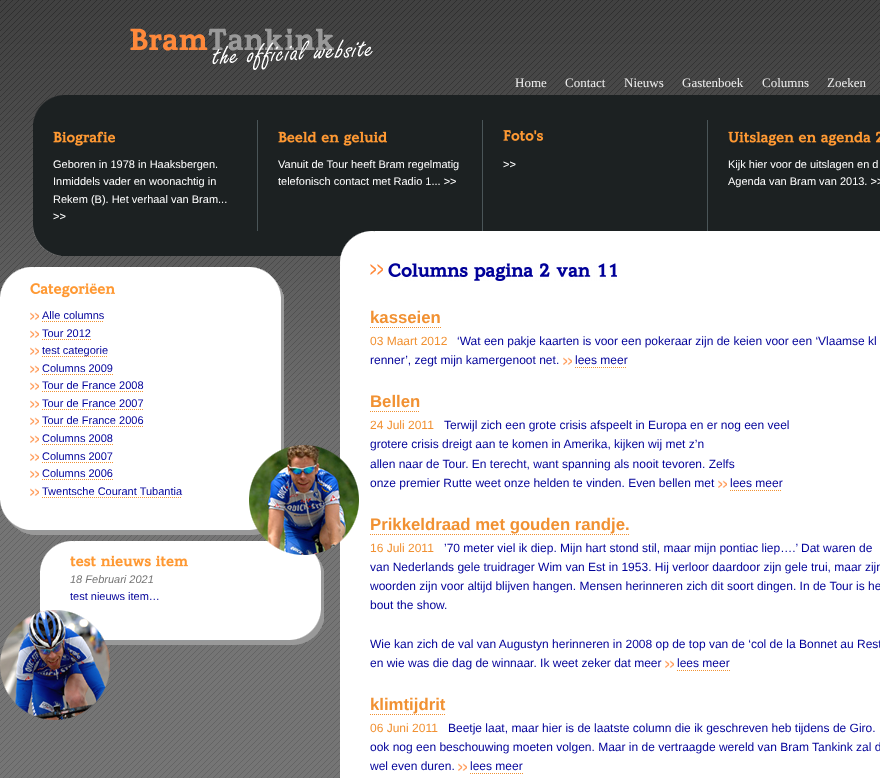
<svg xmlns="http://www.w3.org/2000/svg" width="880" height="778">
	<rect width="100%" height="100%" fill="#FFFFFF" />
	<image x="0" y="0" width="880" height="778" href="assets/img1.png" />
	<image x="130" y="28" width="243" height="42" href="assets/img2.png" />
	<g font-family="Liberation Serif" font-size="13" fill="#EEEEEE">
		<text x="515" y="87">Home</text>
		<text x="565" y="87">Contact</text>
		<text x="624" y="87">Nieuws</text>
		<text x="682" y="87">Gastenboek</text>
		<text x="762" y="87">Columns</text>
		<text x="827" y="87">Zoeken</text>
	</g>
	<image x="33" y="95" width="847" height="161" href="assets/img3.png" />
	<image x="53" y="131" width="62" height="15" href="assets/img4.png" />
	<g font-family="Liberation Sans" font-size="11" fill="#FFFFFF">
		<text x="53" y="168">Geboren in 1978 in Haaksbergen.</text>
		<text x="53" y="185">Inmiddels vader en woonachtig in</text>
		<text x="53" y="203">Rekem (B). Het verhaal van Bram...</text>
		<text x="53" y="220">&gt;&gt;</text>
	</g>
	<image x="278" y="131" width="109" height="15" href="assets/img5.png" />
	<g font-family="Liberation Sans" font-size="11" fill="#FFFFFF">
		<text x="278" y="168">Vanuit de Tour heeft Bram regelmatig</text>
		<text x="278" y="185">telefonisch contact met Radio 1... &gt;&gt;</text>
	</g>
	<image x="503" y="130" width="40" height="11" href="assets/img6.png" />
	<text x="503" y="168" font-family="Liberation Sans" font-size="11" fill="#FFFFFF">&gt;&gt;</text>
	<image x="728" y="131" width="152" height="15" href="assets/img7.png" />
	<g font-family="Liberation Sans" font-size="11" fill="#FFFFFF">
		<text x="728" y="168">Kijk hier voor de uitslagen en d</text>
		<text x="728" y="185">Agenda van Bram van 2013. &gt;&gt;</text>
	</g>
	<image x="0" y="267" width="284" height="30" href="assets/img8.png" />
	<rect x="0" y="297" width="281" height="203" fill="#FFFFFF" />
	<rect x="281" y="297" width="3" height="154" fill="#999999" />
	<image x="30" y="283" width="85" height="15" href="assets/img9.png" />
	<image x="30" y="312" width="9" height="8" href="assets/img10.png" />
	<text x="42" y="319" font-family="Liberation Sans" font-size="11" fill="#000099">Alle columns</text>
	<path d="M42 321.5H104" fill="none" stroke="#F19132" stroke-dasharray="1 1" />
	<image x="30" y="330" width="9" height="8" href="assets/img10.png" />
	<text x="42" y="337" font-family="Liberation Sans" font-size="11" fill="#000099">Tour 2012</text>
	<path d="M42 339.5H91" fill="none" stroke="#F19132" stroke-dasharray="1 1" />
	<image x="30" y="347" width="9" height="8" href="assets/img10.png" />
	<path d="M42 356.5H108" fill="none" stroke="#F19132" stroke-dasharray="1 1" />
	<text x="42" y="354" font-family="Liberation Sans" font-size="11" fill="#000099">test categorie</text>
	<image x="30" y="365" width="9" height="8" href="assets/img10.png" />
	<text x="42" y="372" font-family="Liberation Sans" font-size="11" fill="#000099">Columns 2009</text>
	<path d="M42 374.5H113" fill="none" stroke="#F19132" stroke-dasharray="1 1" />
	<image x="30" y="382" width="9" height="8" href="assets/img10.png" />
	<text x="42" y="389" font-family="Liberation Sans" font-size="11" fill="#000099">Tour de France 2008</text>
	<path d="M42 391.5H143" fill="none" stroke="#F19132" stroke-dasharray="1 1" />
	<image x="30" y="400" width="9" height="8" href="assets/img10.png" />
	<text x="42" y="407" font-family="Liberation Sans" font-size="11" fill="#000099">Tour de France 2007</text>
	<path d="M42 409.5H143" fill="none" stroke="#F19132" stroke-dasharray="1 1" />
	<image x="30" y="417" width="9" height="8" href="assets/img10.png" />
	<text x="42" y="424" font-family="Liberation Sans" font-size="11" fill="#000099">Tour de France 2006</text>
	<path d="M42 426.5H143" fill="none" stroke="#F19132" stroke-dasharray="1 1" />
	<image x="30" y="435" width="9" height="8" href="assets/img10.png" />
	<text x="42" y="442" font-family="Liberation Sans" font-size="11" fill="#000099">Columns 2008</text>
	<path d="M42 444.5H113" fill="none" stroke="#F19132" stroke-dasharray="1 1" />
	<image x="30" y="453" width="9" height="8" href="assets/img10.png" />
	<text x="42" y="460" font-family="Liberation Sans" font-size="11" fill="#000099">Columns 2007</text>
	<path d="M42 462.5H113" fill="none" stroke="#F19132" stroke-dasharray="1 1" />
	<image x="30" y="470" width="9" height="8" href="assets/img10.png" />
	<text x="42" y="477" font-family="Liberation Sans" font-size="11" fill="#000099">Columns 2006</text>
	<path d="M42 479.5H113" fill="none" stroke="#F19132" stroke-dasharray="1 1" />
	<image x="30" y="488" width="9" height="8" href="assets/img10.png" />
	<text x="42" y="495" font-family="Liberation Sans" font-size="11" fill="#000099">Twentsche Courant Tubantia</text>
	<path d="M42 497.5H182" fill="none" stroke="#F19132" stroke-dasharray="1 1" />
	<image x="0" y="500" width="261" height="35" href="assets/img12.png" />
	<image x="40" y="541" width="284" height="30" href="assets/img13.png" />
	<rect x="340" y="266" width="540" height="512" fill="#FFFFFF" />
	<image x="249" y="445" width="110" height="110" href="assets/img11.png" />
	<rect x="40" y="571" width="281" height="39" fill="#FFFFFF" />
	<rect x="321" y="571" width="3" height="39" fill="#999999" />
	<image x="70" y="555" width="118" height="12" href="assets/img14.png" />
	<text x="70" y="583" font-family="Liberation Sans" font-size="11" font-style="italic" fill="#757575">18 Februari 2021</text>
	<text x="70" y="600" font-family="Liberation Sans" font-size="11" fill="#000099">test nieuws item…</text>
	<image x="40" y="610" width="284" height="35" href="assets/img16.png" />
	<image x="0" y="610" width="110" height="110" href="assets/img15.png" />
	<image x="340" y="231" width="540" height="35" href="assets/img17.png" />
	<image x="370" y="264" width="13" height="11" href="assets/img18.png" />
	<image x="388" y="263" width="229" height="18" href="assets/img19.png" />
	<text x="370" y="323" font-family="Liberation Sans" font-size="16.75" font-weight="700" fill="#F19132">kasseien</text>
	<path d="M370 327.5H441" fill="none" stroke="#F19132" stroke-dasharray="1 1" />
	<text x="370" y="345" font-family="Liberation Sans" font-size="12" fill="#F19132">03 Maart 2012</text>
	<g font-family="Liberation Sans" font-size="12" fill="#000099">
		<text x="457" y="345">‘Wat een pakje kaarten is voor een pokeraar zijn de keien voor een ‘Vlaamse kl</text>
		<text x="370" y="364">renner’, zegt mijn kamergenoot net.</text>
	</g>
	<image x="563" y="357" width="9" height="8" href="assets/img10.png" />
	<text x="575" y="364" font-family="Liberation Sans" font-size="12" fill="#000099">lees meer</text>
	<path d="M575 367.5H627" fill="none" stroke="#F19132" stroke-dasharray="1 1" />
	<text x="370" y="407" font-family="Liberation Sans" font-size="16.75" font-weight="700" fill="#F19132">Bellen</text>
	<path d="M370 411.5H420" fill="none" stroke="#F19132" stroke-dasharray="1 1" />
	<text x="370" y="429" font-family="Liberation Sans" font-size="12" fill="#F19132">24 Juli 2011</text>
	<g font-family="Liberation Sans" font-size="12" fill="#000099">
		<text x="444" y="429">Terwijl zich een grote crisis afspeelt in Europa en er nog een veel</text>
		<text x="370" y="448">grotere crisis dreigt aan te komen in Amerika, kijken wij met z’n</text>
		<text x="370" y="468">allen naar de Tour. En terecht, want spanning als nooit tevoren. Zelfs</text>
		<text x="370" y="487">onze premier Rutte weet onze helden te vinden. Even bellen met</text>
	</g>
	<image x="718" y="480" width="9" height="8" href="assets/img10.png" />
	<text x="730" y="487" font-family="Liberation Sans" font-size="12" fill="#000099">lees meer</text>
	<path d="M730 490.5H782" fill="none" stroke="#F19132" stroke-dasharray="1 1" />
	<text x="370" y="530" font-family="Liberation Sans" font-size="16.75" font-weight="700" fill="#F19132">Prikkeldraad met gouden randje.</text>
	<path d="M370 534.5H630" fill="none" stroke="#F19132" stroke-dasharray="1 1" />
	<text x="370" y="552" font-family="Liberation Sans" font-size="12" fill="#F19132">16 Juli 2011</text>
	<g font-family="Liberation Sans" font-size="12" fill="#000099">
		<text x="444" y="552">’70 meter viel ik diep. Mijn hart stond stil, maar mijn pontiac liep….’ Dat waren de</text>
		<text x="370" y="571">van Nederlands gele truidrager Wim van Est in 1953. Hij verloor daardoor zijn gele trui, maar zijn</text>
		<text x="370" y="590">woorden zijn voor altijd blijven hangen. Mensen herinneren zich dit soort dingen. In de Tour is he</text>
		<text x="370" y="609">bout the show.</text>
		<text x="370" y="648">Wie kan zich de val van Augustyn herinneren in 2008 op de top van de ‘col de la Bonnet au Rest</text>
		<text x="370" y="667">en wie was die dag de winnaar. Ik weet zeker dat meer</text>
	</g>
	<image x="665" y="660" width="9" height="8" href="assets/img10.png" />
	<text x="677" y="667" font-family="Liberation Sans" font-size="12" fill="#000099">lees meer</text>
	<path d="M677 670.5H730" fill="none" stroke="#F19132" stroke-dasharray="1 1" />
	<text x="370" y="710" font-family="Liberation Sans" font-size="16.75" font-weight="700" fill="#F19132">klimtijdrit</text>
	<path d="M370 714.5H446" fill="none" stroke="#F19132" stroke-dasharray="1 1" />
	<text x="370" y="732" font-family="Liberation Sans" font-size="12" fill="#F19132">06 Juni 2011</text>
	<g font-family="Liberation Sans" font-size="12" fill="#000099">
		<text x="448" y="732">Beetje laat, maar hier is de laatste column die ik geschreven heb tijdens de Giro.</text>
		<text x="370" y="751">ook nog een beschouwing moeten volgen. Maar in de vertraagde wereld van Bram Tankink zal d</text>
		<text x="370" y="770">wel even duren.</text>
	</g>
	<image x="458" y="763" width="9" height="8" href="assets/img10.png" />
	<text x="470" y="770" font-family="Liberation Sans" font-size="12" fill="#000099">lees meer</text>
	<path d="M470 773.5H523" fill="none" stroke="#F19132" stroke-dasharray="1 1" />
</svg>
